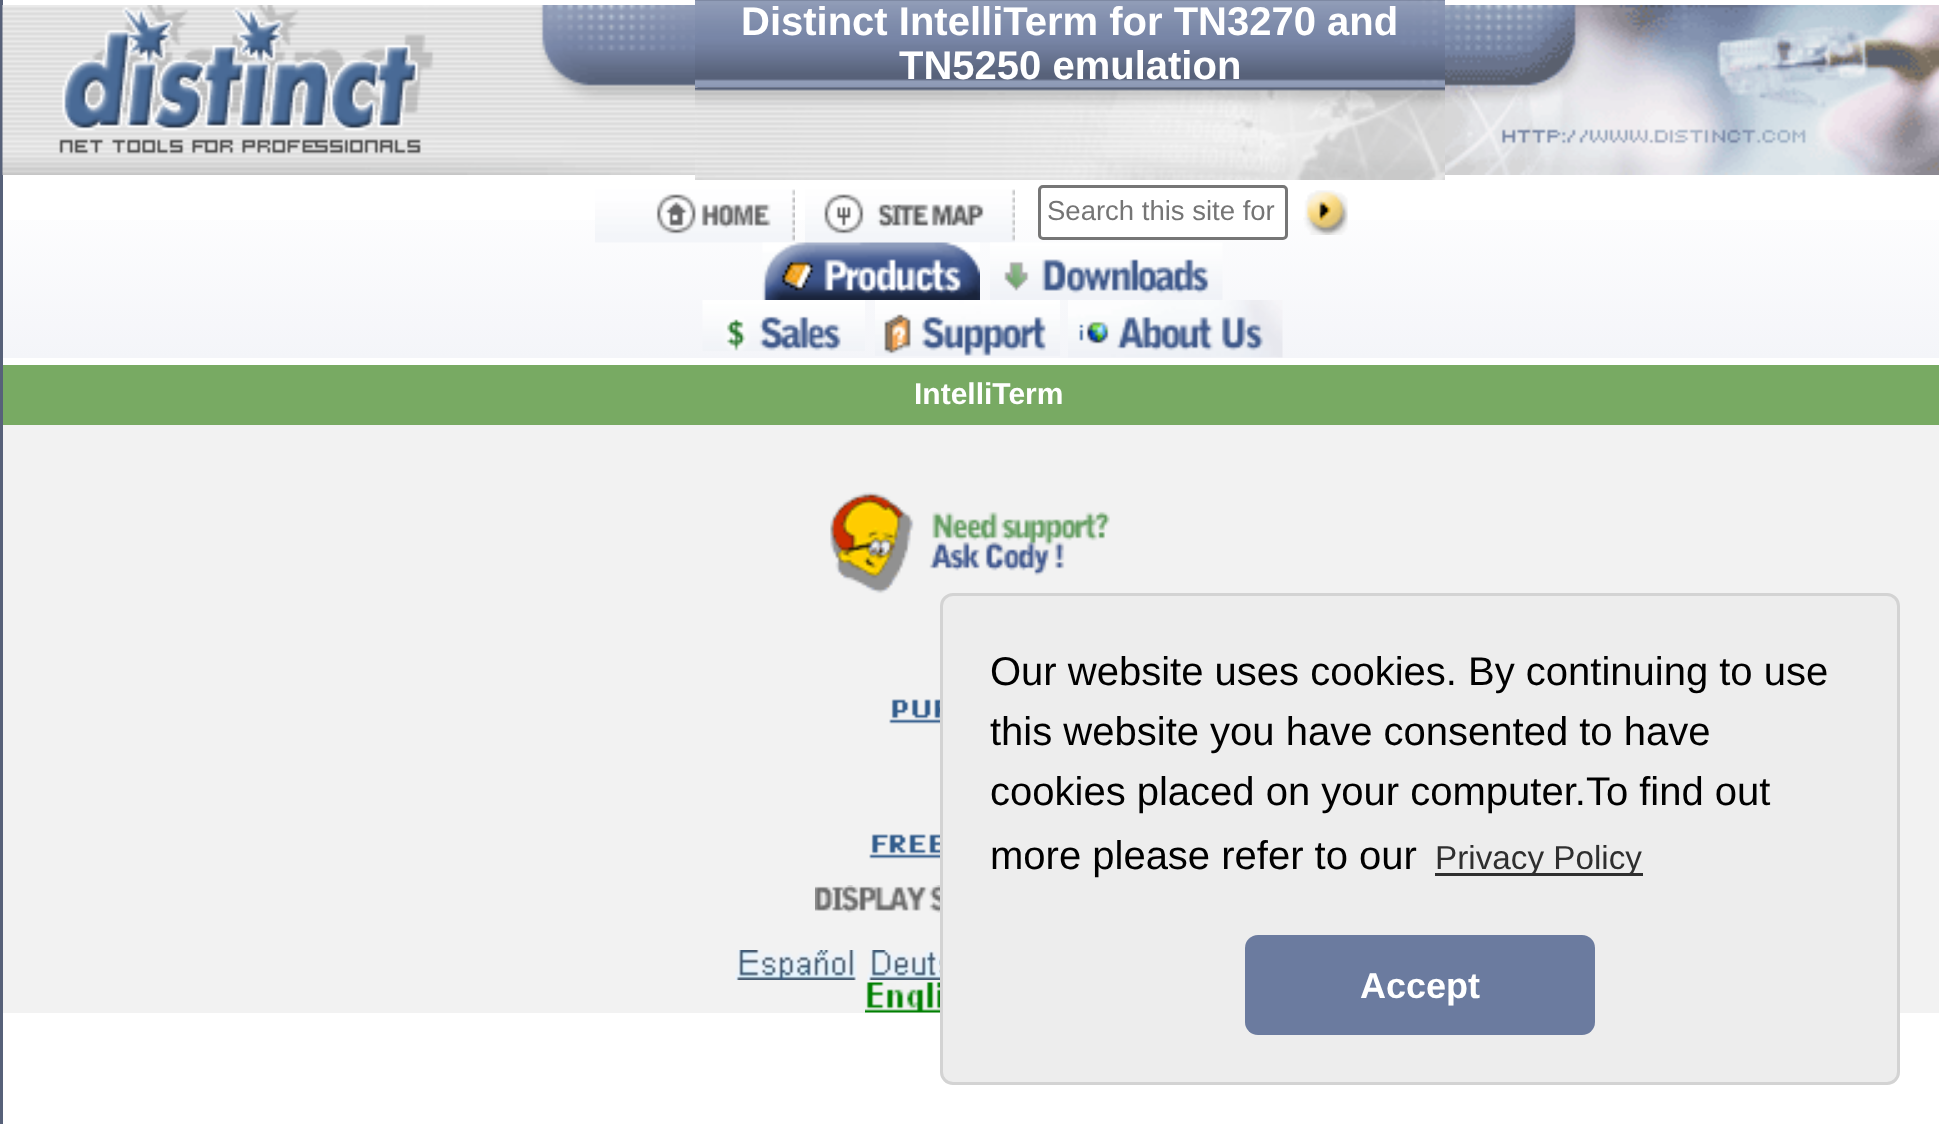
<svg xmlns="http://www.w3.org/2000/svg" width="1939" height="1124">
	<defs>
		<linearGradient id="g1" gradientUnits="userSpaceOnUse" x1="971" y1="180" x2="971" y2="358"><stop offset="0" stop-color="#FFFFFF" /><stop offset="1" stop-color="#F4F5F9" /></linearGradient>
	</defs>
	<rect width="100%" height="100%" fill="#FFFFFF" />
	<rect x="0" y="0" width="3" height="1124" fill="#576179" />
	<image x="2" y="5" width="693" height="170" href="assets/img1.png" />
	<image x="695" y="0" width="750" height="88" href="assets/img2.png" />
	<g font-family="Liberation Sans" font-size="40" font-weight="700" fill="#FFFFFF">
		<text x="741" y="35">Distinct IntelliTerm for TN3270 and</text>
		<text x="899" y="79">TN5250 emulation</text>
	</g>
	<image x="1445" y="5" width="494" height="170" href="assets/img3.png" />
	<image x="695" y="87" width="750" height="93" href="assets/img4.png" />
	<image x="697" y="87" width="748" height="93" href="assets/img5.png" />
	<rect x="3" y="220" width="1936" height="138" fill="url(#g1)" />
	<image x="595" y="189" width="200" height="54" href="assets/img6.png" />
	<image x="805" y="189" width="210" height="54" href="assets/img7.png" />
	<rect x="1039.5" y="186.5" width="247" height="52" rx="3.5" fill="#FFFFFF" stroke="#767676" stroke-width="3" />
	<text x="1047" y="220" font-family="Liberation Sans" font-size="27.5" fill="#757575">Search this site for</text>
	<image x="1303" y="190" width="45" height="45" href="assets/img8.png" />
	<image x="762" y="242" width="218" height="58" href="assets/img9.png" />
	<image x="990" y="242" width="233" height="58" href="assets/img10.png" />
	<image x="702" y="300" width="163" height="51" href="assets/img11.png" />
	<image x="875" y="300" width="185" height="56" href="assets/img12.png" />
	<image x="1068" y="300" width="215" height="58" href="assets/img13.png" />
	<rect x="3" y="365" width="1936" height="60" fill="#78AA63" />
	<text x="914" y="404" font-family="Liberation Sans" font-size="30" font-weight="700" fill="#FFFFFF">IntelliTerm</text>
	<rect x="3" y="425" width="1936" height="588" fill="#F2F2F2" />
	<image x="830" y="492" width="280" height="102" href="assets/img14.png" />
	<image x="889" y="636" width="51" height="88" href="assets/img15.png" />
	<image x="869" y="771" width="71" height="88" href="assets/img16.png" />
	<image x="815" y="885" width="125" height="28" href="assets/img17.png" />
	<image x="735" y="950" width="122" height="30" href="assets/img18.png" />
	<image x="867" y="950" width="73" height="30" href="assets/img19.png" />
	<image x="865" y="982" width="75" height="31" href="assets/img20.png" />
	<rect x="941.5" y="594.5" width="957" height="489" rx="11.5" fill="#EDEDED" stroke="#D3D3D3" stroke-width="3" />
	<g font-family="Liberation Sans" font-size="40" fill="#000000">
		<text x="990" y="685">Our website uses cookies. By continuing to use</text>
		<text x="990" y="745">this website you have consented to have</text>
		<text x="990" y="805">cookies placed on your computer.To find out</text>
		<text x="990" y="869">more please refer to our</text>
	</g>
	<rect x="1435" y="873" width="208" height="3" fill="#2F2F2F" />
	<text x="1435" y="869" font-family="Liberation Sans" font-size="33.25" fill="#2F2F2F">Privacy Policy</text>
	<rect x="1245" y="935" width="350" height="100" rx="13" fill="#6B7B9F" />
	<text x="1360" y="998" font-family="Liberation Sans" font-size="36" font-weight="700" fill="#FFFFFF">Accept</text>
</svg>
